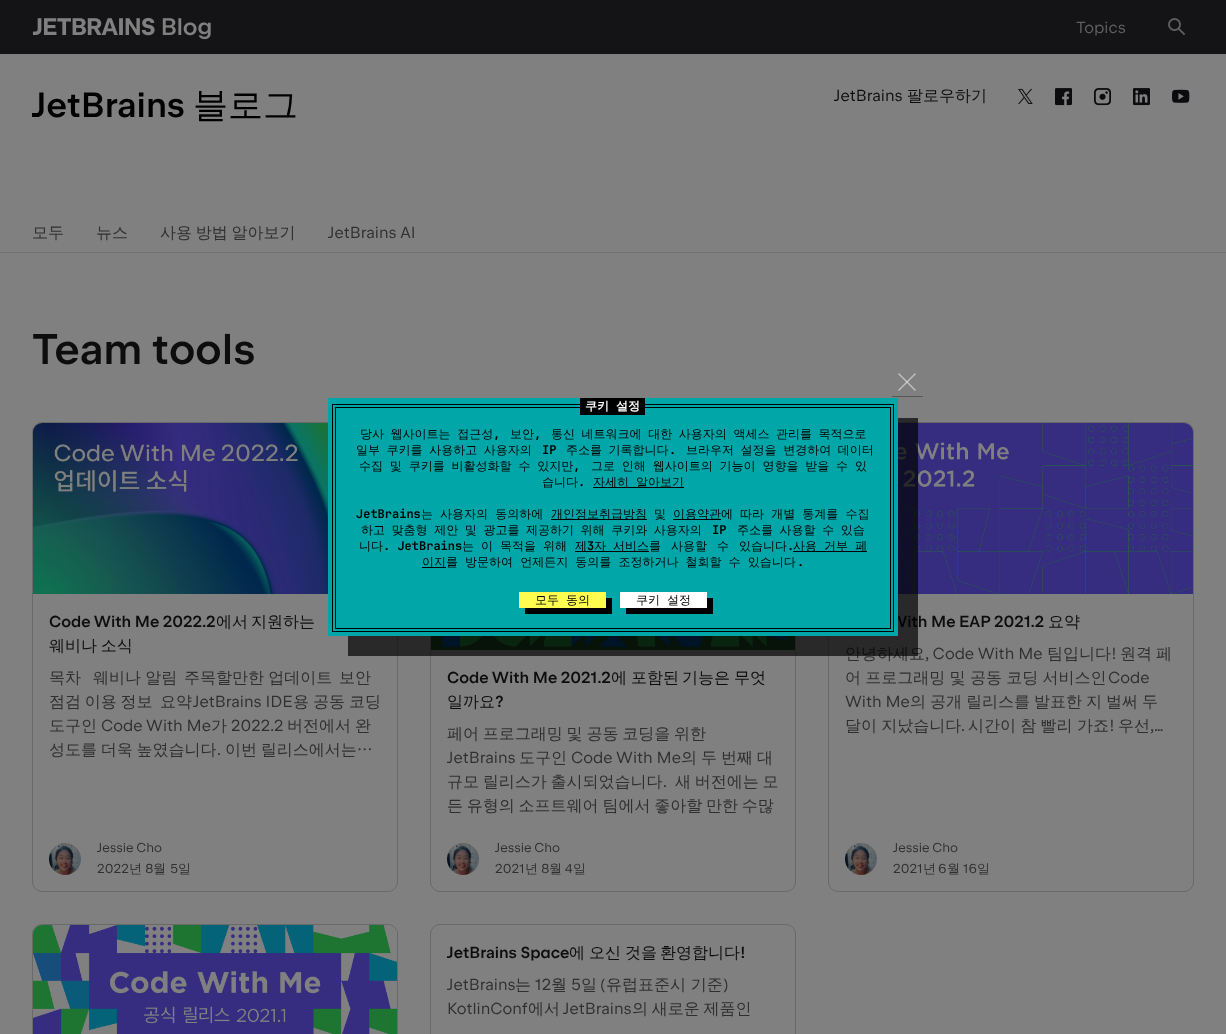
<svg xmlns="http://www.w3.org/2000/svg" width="1226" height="1034">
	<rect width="100%" height="100%" fill="#808080" />
	<rect x="0" y="0" width="1226" height="54" fill="#141416" />
	<image x="32" y="17" width="179" height="23" href="assets/img1.png" />
	<text x="1076" y="33" font-family="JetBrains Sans" font-size="16" fill="#5F6060">Topics</text>
	<image x="1168" y="18" width="18" height="18" href="assets/img2.png" />
	<text x="32" y="117" font-family="JetBrains Sans" font-size="35" font-weight="600" fill="#000000">JetBrains</text>
	<text x="193" y="117" font-family="WenQuanYi Zen Hei" font-size="35" font-weight="500" fill="#000000">블로그</text>
	<text x="834" y="101" font-family="JetBrains Sans" font-size="16" fill="#0D0D0E">JetBrains</text>
	<text x="907" y="101" font-family="WenQuanYi Zen Hei" font-size="16" font-weight="500" fill="#0D0D0E">팔로우하기</text>
	<image x="1018" y="88" width="15" height="16" href="assets/img3.png" />
	<image x="1055" y="88" width="17" height="18" href="assets/img4.png" />
	<image x="1094" y="88" width="17" height="18" href="assets/img5.png" />
	<image x="1133" y="88" width="17" height="18" href="assets/img6.png" />
	<image x="1172" y="89" width="18" height="14" href="assets/img7.png" />
	<g font-family="WenQuanYi Zen Hei" font-size="16" font-weight="500" fill="#2F2F30">
		<text x="32" y="238">모두</text>
		<text x="96" y="238">뉴스</text>
		<text x="160" y="238" word-spacing="-1">사용 방법 알아보기</text>
	</g>
	<text x="328" y="238" font-family="JetBrains Sans" font-size="16" fill="#2F2F30">JetBrains AI</text>
	<rect x="0" y="252" width="1226" height="1" fill="#707070" />
	<text x="32" y="364" font-family="JetBrains Sans" font-size="43" font-weight="600" fill="#0D0D0E">Team tools</text>
	<rect x="32.5" y="422.5" width="365" height="469" rx="9.5" fill="none" stroke="#696969" />
	<image x="33" y="423" width="295" height="171" href="assets/img8.png" />
	<text x="49" y="627" font-family="JetBrains Sans" font-size="16" font-weight="600" fill="#0D0D0E">Code With Me 2022.2</text>
	<g font-family="WenQuanYi Zen Hei" font-size="16" font-weight="500" fill="#0D0D0E">
		<text x="216" y="627">에서</text>
		<text x="251" y="627">지원하는</text>
		<text x="49" y="651" word-spacing="-1">웨비나 소식</text>
	</g>
	<g font-family="WenQuanYi Zen Hei" font-size="16" font-weight="500" fill="#2F2F30">
		<text x="49" y="683">목차</text>
		<text x="93" y="683" word-spacing="-0.5">웨비나 알림</text>
		<text x="184" y="683" word-spacing="-0.5">주목할만한 업데이트</text>
		<text x="339" y="683">보안</text>
		<text x="49" y="707" word-spacing="-1">점검 이용 정보</text>
		<text x="160" y="707">요약</text>
	</g>
	<text x="193" y="707" font-family="JetBrains Sans" font-size="16" fill="#2F2F30">JetBrains IDE</text>
	<g font-family="WenQuanYi Zen Hei" font-size="16" font-weight="500" fill="#2F2F30">
		<text x="293" y="707">용</text>
		<text x="313" y="707">공동</text>
		<text x="349" y="707">코딩</text>
		<text x="49" y="731">도구인</text>
	</g>
	<text x="101" y="731" font-family="JetBrains Sans" font-size="16" fill="#2F2F30">Code With Me</text>
	<text x="211" y="731" font-family="WenQuanYi Zen Hei" font-size="16" font-weight="500" fill="#2F2F30">가</text>
	<text x="231" y="731" font-family="JetBrains Sans" font-size="16" fill="#2F2F30">2022.2</text>
	<g font-family="WenQuanYi Zen Hei" font-size="16" font-weight="500" fill="#2F2F30">
		<text x="287" y="731">버전에서</text>
		<text x="355" y="731">완</text>
		<text x="49" y="755" word-spacing="-1">성도를 더욱 높였습니다</text>
	</g>
	<text x="217" y="755" font-family="JetBrains Sans" font-size="16" fill="#2F2F30">.</text>
	<text x="225" y="755" word-spacing="-1" font-family="WenQuanYi Zen Hei" font-size="16" font-weight="500" fill="#2F2F30">이번 릴리스에서는…</text>
	<image x="49" y="843" width="32" height="32" href="assets/img9.png" />
	<g font-family="JetBrains Sans" font-size="13" fill="#2F2F30">
		<text x="97" y="852">Jessie Cho</text>
		<text x="97" y="873">2022</text>
	</g>
	<text x="129" y="873" font-family="WenQuanYi Zen Hei" font-size="13" font-weight="500" fill="#2F2F30">년</text>
	<text x="145" y="873" font-family="JetBrains Sans" font-size="13" fill="#2F2F30">8</text>
	<text x="153" y="873" font-family="WenQuanYi Zen Hei" font-size="13" font-weight="500" fill="#2F2F30">월</text>
	<text x="170" y="873" font-family="JetBrains Sans" font-size="13" fill="#2F2F30">5</text>
	<text x="178" y="873" font-family="WenQuanYi Zen Hei" font-size="13" font-weight="500" fill="#2F2F30">일</text>
	<rect x="430.5" y="422.5" width="365" height="469" rx="9.5" fill="none" stroke="#696969" />
	<image x="431" y="636" width="364" height="14" href="assets/img10.png" />
	<text x="447" y="683" font-family="JetBrains Sans" font-size="16" font-weight="600" fill="#0D0D0E">Code With Me 2021.2</text>
	<g font-family="WenQuanYi Zen Hei" font-size="16" font-weight="500" fill="#0D0D0E">
		<text x="611" y="683">에</text>
		<text x="631" y="683">포함된</text>
		<text x="682" y="683">기능은</text>
		<text x="734" y="683">무엇</text>
		<text x="447" y="707">일까요</text>
	</g>
	<text x="495" y="707" font-family="JetBrains Sans" font-size="16" font-weight="600" fill="#0D0D0E">?</text>
	<text x="447" y="739" word-spacing="-1" font-family="WenQuanYi Zen Hei" font-size="16" font-weight="500" fill="#2F2F30">페어 프로그래밍 및 공동 코딩을 위한</text>
	<text x="447" y="763" font-family="JetBrains Sans" font-size="16" fill="#2F2F30">JetBrains</text>
	<text x="519" y="763" font-family="WenQuanYi Zen Hei" font-size="16" font-weight="500" fill="#2F2F30">도구인</text>
	<text x="571" y="763" font-family="JetBrains Sans" font-size="16" fill="#2F2F30">Code With Me</text>
	<g font-family="WenQuanYi Zen Hei" font-size="16" font-weight="500" fill="#2F2F30">
		<text x="681" y="763">의</text>
		<text x="701" y="763">두</text>
		<text x="721" y="763">번째</text>
		<text x="757" y="763">대</text>
		<text x="447" y="787" word-spacing="-1">규모 릴리스가 출시되었습니다</text>
	</g>
	<text x="663" y="787" font-family="JetBrains Sans" font-size="16" fill="#2F2F30">.</text>
	<g font-family="WenQuanYi Zen Hei" font-size="16" font-weight="500" fill="#2F2F30">
		<text x="675" y="787" word-spacing="-1">새 버전에는 모</text>
		<text x="447" y="811" word-spacing="-1">든 유형의 소프트웨어 팀에서 좋아할 만한 수많</text>
	</g>
	<image x="447" y="843" width="32" height="32" href="assets/img9.png" />
	<g font-family="JetBrains Sans" font-size="13" fill="#2F2F30">
		<text x="495" y="852">Jessie Cho</text>
		<text x="495" y="873">2021</text>
	</g>
	<text x="525" y="873" font-family="WenQuanYi Zen Hei" font-size="13" font-weight="500" fill="#2F2F30">년</text>
	<text x="541" y="873" font-family="JetBrains Sans" font-size="13" fill="#2F2F30">8</text>
	<text x="549" y="873" font-family="WenQuanYi Zen Hei" font-size="13" font-weight="500" fill="#2F2F30">월</text>
	<text x="565" y="873" font-family="JetBrains Sans" font-size="13" fill="#2F2F30">4</text>
	<text x="573" y="873" font-family="WenQuanYi Zen Hei" font-size="13" font-weight="500" fill="#2F2F30">일</text>
	<rect x="828.5" y="422.5" width="365" height="469" rx="9.5" fill="none" stroke="#696969" />
	<image x="898" y="423" width="295" height="171" href="assets/img11.png" />
	<text x="890" y="627" font-family="JetBrains Sans" font-size="16" font-weight="600" fill="#0D0D0E">With Me EAP 2021.2</text>
	<text x="1048" y="627" font-family="WenQuanYi Zen Hei" font-size="16" font-weight="500" fill="#0D0D0E">요약</text>
	<text x="845" y="659" font-family="WenQuanYi Zen Hei" font-size="16" font-weight="500" fill="#2F2F30">안녕하세요</text>
	<text x="925" y="659" font-family="JetBrains Sans" font-size="16" fill="#2F2F30">, Code With Me</text>
	<text x="1047" y="659" font-family="WenQuanYi Zen Hei" font-size="16" font-weight="500" fill="#2F2F30">팀입니다</text>
	<text x="1111" y="659" font-family="JetBrains Sans" font-size="16" fill="#2F2F30">!</text>
	<g font-family="WenQuanYi Zen Hei" font-size="16" font-weight="500" fill="#2F2F30">
		<text x="1120" y="659">원격</text>
		<text x="1156" y="659">페</text>
		<text x="845" y="683" word-spacing="-0.5">어 프로그래밍 및 공동 코딩 서비스인</text>
	</g>
	<g font-family="JetBrains Sans" font-size="16" fill="#2F2F30">
		<text x="1108" y="683">Code</text>
		<text x="845" y="707">With Me</text>
	</g>
	<g font-family="WenQuanYi Zen Hei" font-size="16" font-weight="500" fill="#2F2F30">
		<text x="910" y="707">의</text>
		<text x="930" y="707">공개</text>
		<text x="966" y="707">릴리스를</text>
		<text x="1034" y="707">발표한</text>
		<text x="1086" y="707">지</text>
		<text x="1106" y="707">벌써</text>
		<text x="1142" y="707">두</text>
		<text x="845" y="731" word-spacing="-0.5">달이 지났습니다</text>
	</g>
	<text x="961" y="731" font-family="JetBrains Sans" font-size="16" fill="#2F2F30">.</text>
	<text x="968" y="731" word-spacing="-0.5" font-family="WenQuanYi Zen Hei" font-size="16" font-weight="500" fill="#2F2F30">시간이 참 빨리 가죠</text>
	<text x="1109" y="731" font-family="JetBrains Sans" font-size="16" fill="#2F2F30">!</text>
	<text x="1118" y="731" font-family="WenQuanYi Zen Hei" font-size="16" font-weight="500" fill="#2F2F30">우선</text>
	<text x="1150" y="731" font-family="JetBrains Sans" font-size="16" fill="#2F2F30">,…</text>
	<image x="845" y="843" width="32" height="32" href="assets/img9.png" />
	<g font-family="JetBrains Sans" font-size="13" fill="#2F2F30">
		<text x="893" y="852">Jessie Cho</text>
		<text x="893" y="873">2021</text>
	</g>
	<text x="923" y="873" font-family="WenQuanYi Zen Hei" font-size="13" font-weight="500" fill="#2F2F30">년</text>
	<text x="938" y="873" font-family="JetBrains Sans" font-size="13" fill="#2F2F30">6</text>
	<text x="947" y="873" font-family="WenQuanYi Zen Hei" font-size="13" font-weight="500" fill="#2F2F30">월</text>
	<text x="963" y="873" font-family="JetBrains Sans" font-size="13" fill="#2F2F30">16</text>
	<text x="977" y="873" font-family="WenQuanYi Zen Hei" font-size="13" font-weight="500" fill="#2F2F30">일</text>
	<rect x="32.5" y="924.5" width="365" height="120" rx="9.5" fill="none" stroke="#696969" />
	<image x="33" y="925" width="364" height="109" href="assets/img12.png" />
	<rect x="430.5" y="924.5" width="365" height="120" rx="9.5" fill="none" stroke="#696969" />
	<text x="447" y="958" font-family="JetBrains Sans" font-size="16" font-weight="600" fill="#0D0D0E">JetBrains Space</text>
	<g font-family="WenQuanYi Zen Hei" font-size="16" font-weight="500" fill="#0D0D0E">
		<text x="569" y="958">에</text>
		<text x="589" y="958">오신</text>
		<text x="625" y="958">것을</text>
		<text x="660" y="958">환영합니다</text>
	</g>
	<text x="740" y="958" font-family="JetBrains Sans" font-size="16" font-weight="600" fill="#0D0D0E">!</text>
	<text x="447" y="990" font-family="JetBrains Sans" font-size="16" fill="#2F2F30">JetBrains</text>
	<text x="515" y="990" font-family="WenQuanYi Zen Hei" font-size="16" font-weight="500" fill="#2F2F30">는</text>
	<text x="535" y="990" font-family="JetBrains Sans" font-size="16" fill="#2F2F30">12</text>
	<text x="551" y="990" font-family="WenQuanYi Zen Hei" font-size="16" font-weight="500" fill="#2F2F30">월</text>
	<text x="571" y="990" font-family="JetBrains Sans" font-size="16" fill="#2F2F30">5</text>
	<text x="581" y="990" font-family="WenQuanYi Zen Hei" font-size="16" font-weight="500" fill="#2F2F30">일</text>
	<text x="600" y="990" font-family="JetBrains Sans" font-size="16" fill="#2F2F30">(</text>
	<text x="606" y="990" font-family="WenQuanYi Zen Hei" font-size="16" font-weight="500" fill="#2F2F30">유럽표준시 기준</text>
	<g font-family="JetBrains Sans" font-size="16" fill="#2F2F30">
		<text x="723" y="990">)</text>
		<text x="447" y="1014">KotlinConf</text>
	</g>
	<text x="528" y="1014" font-family="WenQuanYi Zen Hei" font-size="16" font-weight="500" fill="#2F2F30">에서</text>
	<text x="563" y="1014" font-family="JetBrains Sans" font-size="16" fill="#2F2F30">JetBrains</text>
	<text x="632" y="1014" word-spacing="-1" font-family="WenQuanYi Zen Hei" font-size="16" font-weight="500" fill="#2F2F30">의 새로운 제품인</text>
	<path d="M348 636V656H918V418H898V636Z" fill="#000000" fill-opacity="0.68" />
	<rect x="328" y="398" width="570" height="238" fill="#01A7A8" />
	<rect x="892" y="396" width="31" height="1" fill="#575758" />
	<path d="M898 390L915 373L916 374L899 391Z" fill="#BFBFBF" />
	<path d="M899 373L916 390L915 391L898 374Z" fill="#FFFFFF" fill-opacity="0.5" />
	<rect x="335" y="407" width="556" height="1" fill="#000000" />
	<rect x="890" y="407" width="1" height="222" fill="#000000" />
	<rect x="335" y="407" width="1" height="185" fill="#000000" />
	<rect x="332" y="404" width="562" height="1" fill="#000000" />
	<rect x="580" y="398" width="65" height="17" fill="#000000" />
	<text x="585" y="410" word-spacing="3.5" font-family="WenQuanYi Zen Hei" font-size="12" font-weight="700" fill="#FFFFFF">쿠키 설정</text>
	<rect x="893" y="404" width="1" height="228" fill="#000000" />
	<rect x="332" y="404" width="1" height="187" fill="#000000" />
	<text x="360" y="438" word-spacing="3" font-family="WenQuanYi Zen Hei" font-size="12" font-weight="500" fill="#000000">당사 웹사이트는 접근성</text>
	<text x="493" y="438" font-family="JetBrains Mono" font-size="12" font-weight="700" fill="#000000">,</text>
	<text x="510" y="438" font-family="WenQuanYi Zen Hei" font-size="12" font-weight="500" fill="#000000">보안</text>
	<text x="534" y="438" font-family="JetBrains Mono" font-size="12" font-weight="700" fill="#000000">,</text>
	<g font-family="WenQuanYi Zen Hei" font-size="12" font-weight="500" fill="#000000">
		<text x="551" y="438" word-spacing="3">통신 네트워크에 대한 사용자의 액세스 관리를 목적으로</text>
		<text x="356" y="454" word-spacing="3">일부 쿠키를 사용하고 사용자의</text>
	</g>
	<text x="542" y="454" font-family="JetBrains Mono" font-size="12" font-weight="700" fill="#000000">IP</text>
	<text x="566" y="454" word-spacing="3" font-family="WenQuanYi Zen Hei" font-size="12" font-weight="500" fill="#000000">주소를 기록합니다</text>
	<text x="669" y="454" font-family="JetBrains Mono" font-size="12" font-weight="700" fill="#000000">.</text>
	<g font-family="WenQuanYi Zen Hei" font-size="12" font-weight="500" fill="#000000">
		<text x="686" y="454" word-spacing="3">브라우저 설정을 변경하여 데이터</text>
		<text x="359" y="470" word-spacing="3.25">수집 및 쿠키를 비활성화할 수 있지만</text>
	</g>
	<text x="573" y="470" font-family="JetBrains Mono" font-size="12" font-weight="700" fill="#000000">,</text>
	<g font-family="WenQuanYi Zen Hei" font-size="12" font-weight="500" fill="#000000">
		<text x="591" y="470" word-spacing="3.25">그로 인해 웹사이트의 기능이 영향을 받을 수 있</text>
		<text x="542" y="486">습니다</text>
	</g>
	<text x="578" y="486" font-family="JetBrains Mono" font-size="12" font-weight="700" fill="#000000">.</text>
	<rect x="593" y="487" width="91" height="1" fill="#000000" />
	<text x="593" y="486" word-spacing="3.5" font-family="WenQuanYi Zen Hei" font-size="12" font-weight="500" fill="#000000">자세히 알아보기</text>
	<text x="356" y="518" font-family="JetBrains Mono" font-size="12" font-weight="700" fill="#000000">JetBrains</text>
	<text x="421" y="518" word-spacing="3.5" font-family="WenQuanYi Zen Hei" font-size="12" font-weight="500" fill="#000000">는 사용자의 동의하에</text>
	<rect x="551" y="519" width="96" height="1" fill="#000000" />
	<g font-family="WenQuanYi Zen Hei" font-size="12" font-weight="500" fill="#000000">
		<text x="551" y="518">개인정보취급방침</text>
		<text x="654" y="518">및</text>
	</g>
	<rect x="673" y="519" width="48" height="1" fill="#000000" />
	<g font-family="WenQuanYi Zen Hei" font-size="12" font-weight="500" fill="#000000">
		<text x="673" y="518">이용약관</text>
		<text x="721" y="518" word-spacing="3.5">에 따라 개별 통계를 수집</text>
		<text x="361" y="534" word-spacing="3">하고 맞춤형 제안 및 광고를 제공하기 위해 쿠키와 사용자의</text>
	</g>
	<text x="712" y="534" font-family="JetBrains Mono" font-size="12" font-weight="700" fill="#000000">IP</text>
	<g font-family="WenQuanYi Zen Hei" font-size="12" font-weight="500" fill="#000000">
		<text x="737" y="534" word-spacing="3">주소를 사용할 수 있습</text>
		<text x="359" y="550">니다</text>
	</g>
	<text x="383" y="550" font-family="JetBrains Mono" font-size="12" font-weight="700" fill="#000000">. JetBrains</text>
	<g font-family="WenQuanYi Zen Hei" font-size="12" font-weight="500" fill="#000000">
		<text x="462" y="550">는</text>
		<text x="481" y="550">이</text>
		<text x="500" y="550">목적을</text>
		<text x="543" y="550">위해</text>
	</g>
	<rect x="575" y="551" width="74" height="1" fill="#000000" />
	<text x="575" y="550" font-family="WenQuanYi Zen Hei" font-size="12" font-weight="500" fill="#000000">제</text>
	<text x="587" y="550" font-family="JetBrains Mono" font-size="12" font-weight="700" fill="#000000">3</text>
	<g font-family="WenQuanYi Zen Hei" font-size="12" font-weight="500" fill="#000000">
		<text x="594" y="550" word-spacing="3.5">자 서비스</text>
		<text x="649" y="550">를</text>
		<text x="671" y="550">사용할</text>
		<text x="717" y="550">수</text>
		<text x="739" y="550">있습니다</text>
	</g>
	<text x="787" y="550" font-family="JetBrains Mono" font-size="12" font-weight="700" fill="#000000">.</text>
	<rect x="793" y="551" width="74" height="1" fill="#000000" />
	<text x="793" y="550" word-spacing="3.5" font-family="WenQuanYi Zen Hei" font-size="12" font-weight="500" fill="#000000">사용 거부 페</text>
	<rect x="422" y="567" width="24" height="1" fill="#000000" />
	<g font-family="WenQuanYi Zen Hei" font-size="12" font-weight="500" fill="#000000">
		<text x="422" y="566">이지</text>
		<text x="446" y="566" word-spacing="3.5">를 방문하여 언제든지 동의를 조정하거나 철회할 수 있습니다</text>
	</g>
	<text x="797" y="566" font-family="JetBrains Mono" font-size="12" font-weight="700" fill="#000000">.</text>
	<rect x="335" y="628" width="556" height="1" fill="#000000" />
	<rect x="335" y="592" width="1" height="37" fill="#000000" />
	<rect x="332" y="631" width="562" height="1" fill="#000000" />
	<rect x="332" y="591" width="1" height="41" fill="#000000" />
	<path d="M525 608V614H612V598H606V608Z" fill="#000000" />
	<rect x="519" y="592" width="87" height="16" fill="#FEFC4F" />
	<text x="535" y="604" word-spacing="3.5" font-family="WenQuanYi Zen Hei" font-size="12" font-weight="500" fill="#000000">모두 동의</text>
	<path d="M626 608V614H713V598H707V608Z" fill="#000000" />
	<rect x="620" y="592" width="87" height="16" fill="#FFFFFF" />
	<text x="636" y="604" word-spacing="3.5" font-family="WenQuanYi Zen Hei" font-size="12" font-weight="500" fill="#000000">쿠키 설정</text>
</svg>
